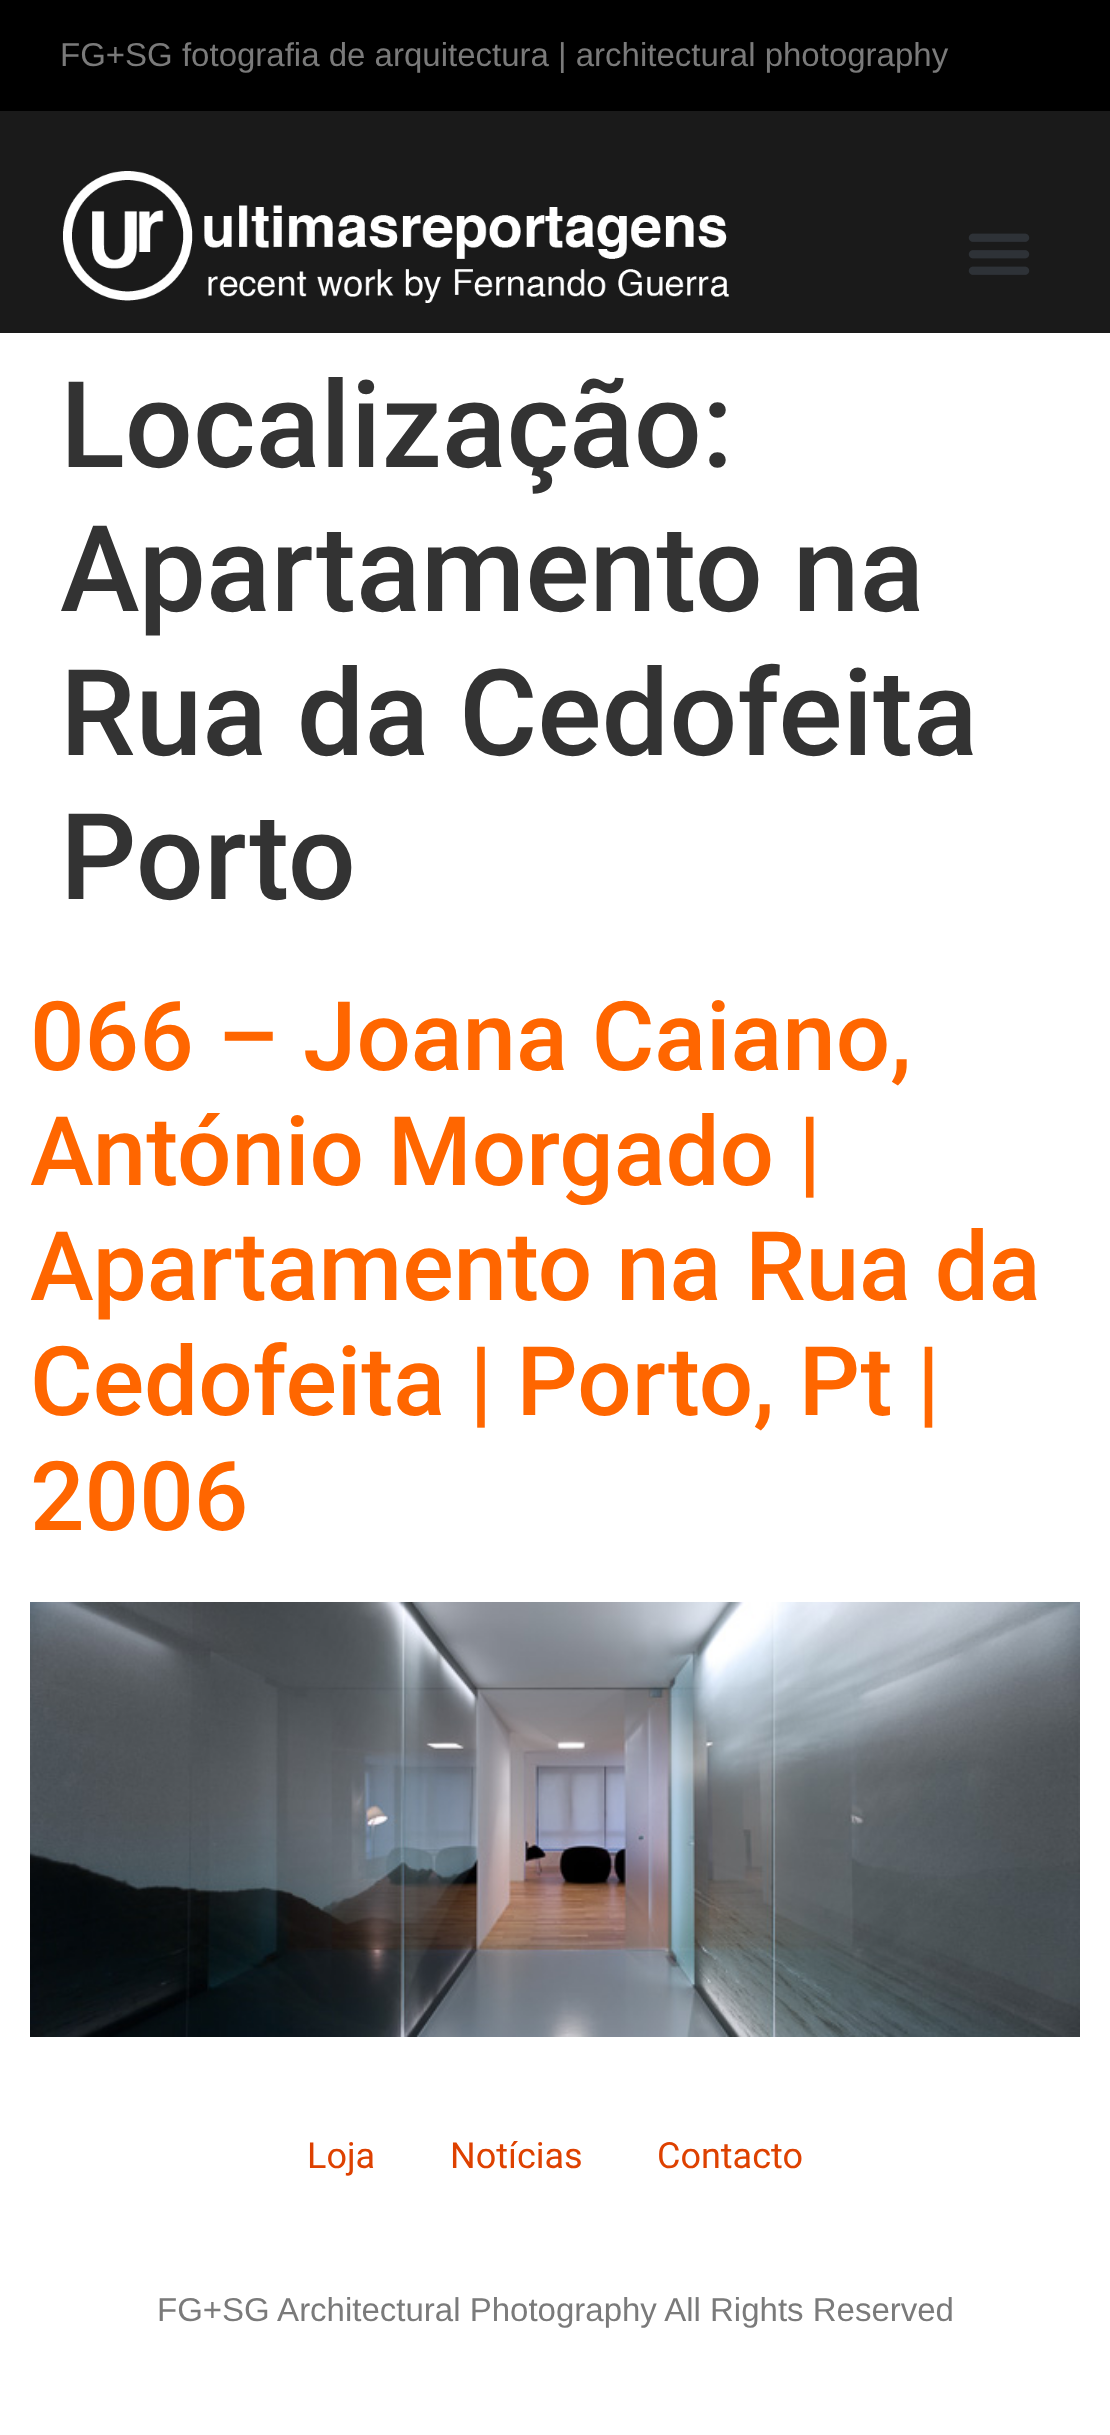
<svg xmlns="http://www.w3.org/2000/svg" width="1110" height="2435">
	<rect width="100%" height="100%" fill="#FFFFFF" />
	<rect x="0" y="0" width="1110" height="111" fill="#000000" />
	<text x="60" y="66" font-family="Liberation Sans" font-size="33" fill="#7A7A7A">FG+SG fotografia de arquitectura | architectural photography</text>
	<rect x="0" y="111" width="1110" height="222" fill="#1A1A1A" />
	<image x="63" y="171" width="666" height="132" href="assets/img1.png" />
	<image x="968" y="233" width="62" height="42" href="assets/img2.png" />
	<g font-family="Roboto" font-size="120" font-weight="500" fill="#333333">
		<text x="60" y="467">Localização:</text>
		<text x="60" y="611">Apartamento na</text>
		<text x="60" y="755">Rua da Cedofeita</text>
		<text x="60" y="899">Porto</text>
	</g>
	<g font-family="Roboto" font-size="96" font-weight="500" fill="#FF6600">
		<text x="30" y="1070">066 – Joana Caiano,</text>
		<text x="30" y="1185">António Morgado |</text>
		<text x="30" y="1300">Apartamento na Rua da</text>
		<text x="30" y="1415">Cedofeita | Porto, Pt |</text>
		<text x="30" y="1530">2006</text>
	</g>
	<image x="30" y="1602" width="1050" height="435" href="assets/img3.png" />
	<g font-family="Roboto" font-size="36" fill="#DE4100">
		<text x="307" y="2168">Loja</text>
		<text x="450" y="2168">Notícias</text>
		<text x="657" y="2168">Contacto</text>
	</g>
	<text x="157" y="2321" font-family="Liberation Sans" font-size="33" fill="#7A7A7A">FG+SG Architectural Photography All Rights Reserved</text>
</svg>
